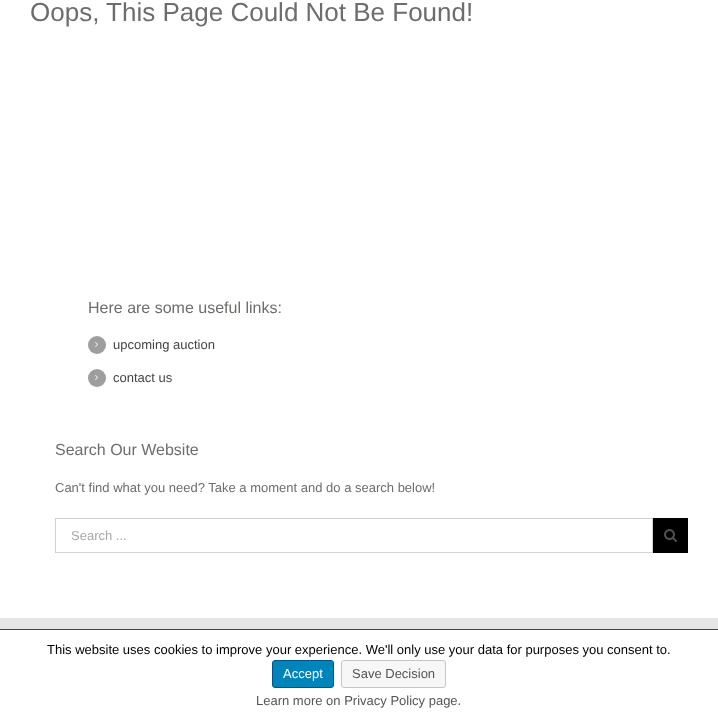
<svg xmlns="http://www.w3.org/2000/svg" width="718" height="726">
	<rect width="100%" height="100%" fill="#FFFFFF" />
	<text x="30" y="21" font-family="Liberation Sans" font-size="26" fill="#6D6D6B">Oops, This Page Could Not Be Found!</text>
	<text x="88" y="313" font-family="Liberation Sans" font-size="16" fill="#6D6D6B">Here are some useful links:</text>
	<circle cx="97" cy="345" r="9" fill="#9E9E9E" />
	<image x="95" y="342" width="3" height="5" href="assets/img1.png" />
	<text x="113" y="349" font-family="Liberation Sans" font-size="13" fill="#444444">upcoming auction</text>
	<circle cx="97" cy="378" r="9" fill="#9E9E9E" />
	<image x="95" y="375" width="3" height="5" href="assets/img1.png" />
	<text x="113" y="382" font-family="Liberation Sans" font-size="13" fill="#444444">contact us</text>
	<text x="55" y="455" font-family="Liberation Sans" font-size="16" fill="#6D6D6B">Search Our Website</text>
	<text x="55" y="492" font-family="Liberation Sans" font-size="13" fill="#6D6D6B">Can't find what you need? Take a moment and do a search below!</text>
	<rect x="55.5" y="518.5" width="597" height="34" fill="none" stroke="#D2D2D2" />
	<text x="71" y="540" font-family="Liberation Sans" font-size="13" fill="#AAA9A9">Search ...</text>
	<rect x="653" y="518" width="35" height="35" fill="#000000" />
	<image x="664" y="529" width="13" height="13" href="assets/img2.png" />
	<rect x="0" y="618" width="718" height="11" fill="#E5E5E5" />
	<rect x="0" y="629" width="718" height="1" fill="#444444" />
	<text x="47" y="654" font-family="Liberation Sans" font-size="13" fill="#000000">This website uses cookies to improve your experience. We'll only use your data for purposes you consent to.</text>
	<rect x="272.5" y="660.5" width="61" height="27" rx="2.5" fill="#0085BA" stroke="#005388" />
	<text x="283" y="678" font-family="Liberation Sans" font-size="13" fill="#FFFFFF">Accept</text>
	<rect x="341.5" y="660.5" width="104" height="27" rx="2.5" fill="#F7F7F7" stroke="#C5C5C5" />
	<g font-family="Liberation Sans" font-size="13" fill="#555555">
		<text x="352" y="678">Save Decision</text>
		<text x="256" y="705">Learn more on Privacy Policy page.</text>
	</g>
</svg>
